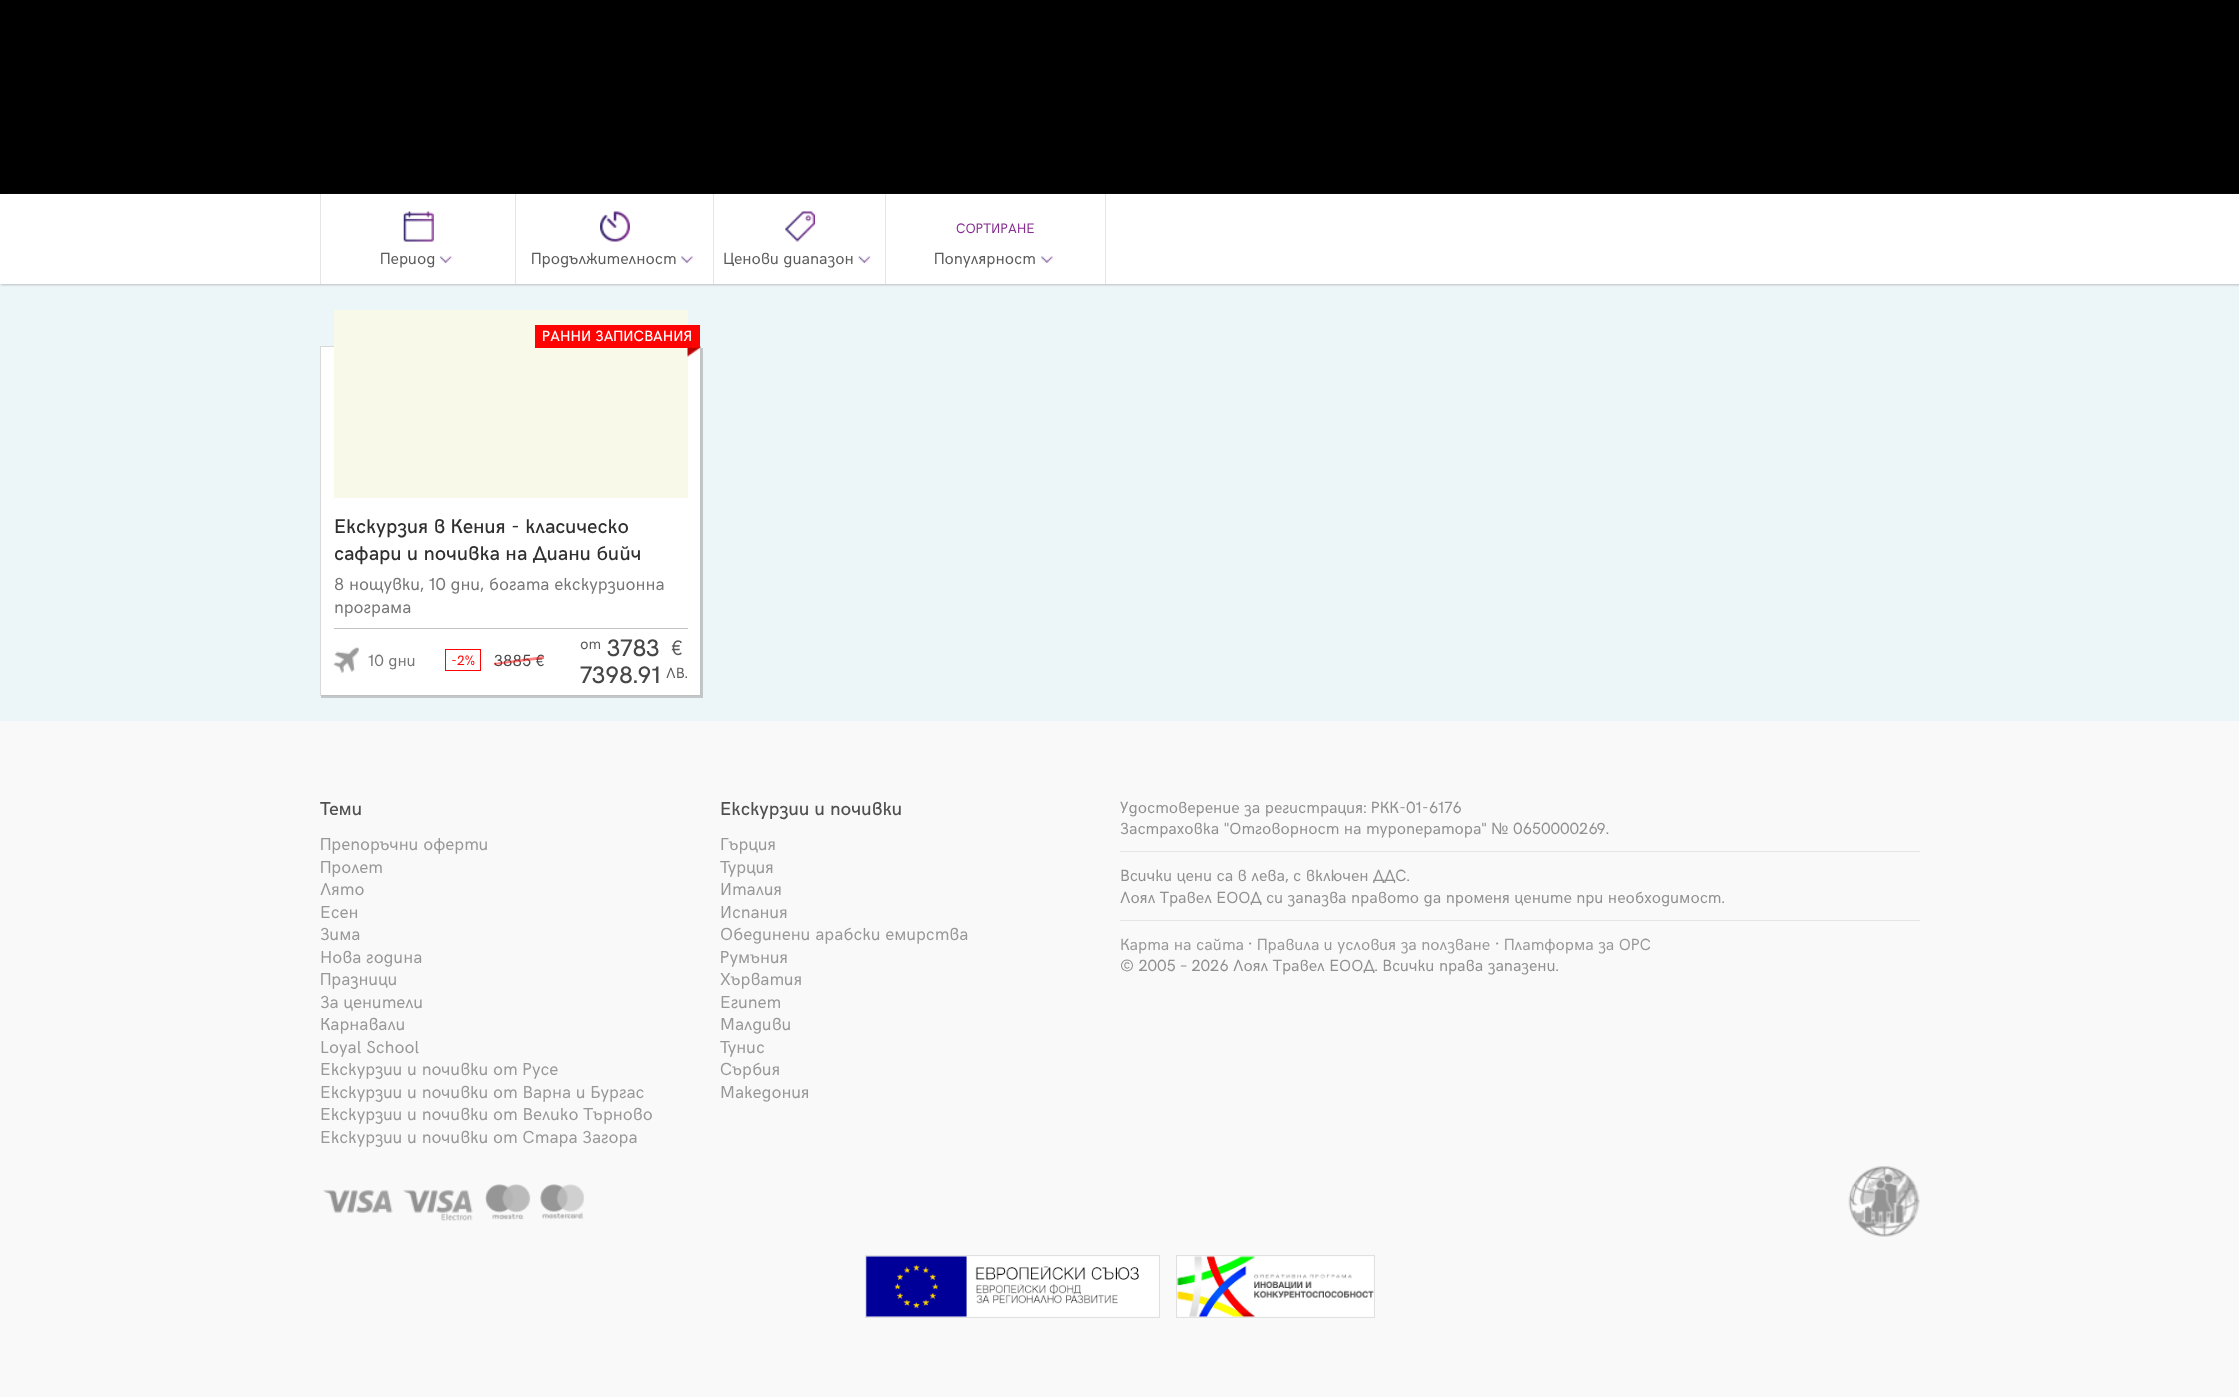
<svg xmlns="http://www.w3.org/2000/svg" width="2239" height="1397">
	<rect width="100%" height="100%" fill="#F9F9F9" />
	<rect x="0" y="0" width="2239" height="194" fill="#000000" />
	<rect x="0" y="284" width="2239" height="437" fill="#ECF6F8" />
	<rect x="1" y="195" width="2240" height="90" fill="#919191" fill-opacity="0.55" filter="blur(1px)" />
	<rect x="0" y="194" width="2239" height="90" fill="#FFFFFF" />
	<rect x="320" y="194" width="1" height="90" fill="#E5E5E5" />
	<image x="403" y="211" width="31" height="31" href="assets/img1.png" />
	<text x="380" y="264" font-family="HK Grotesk" font-size="16.25" fill="#5A5A5A">Период</text>
	<image x="439" y="256" width="13" height="7" href="assets/img2.png" />
	<rect x="515" y="194" width="1" height="90" fill="#E5E5E5" />
	<image x="600" y="211" width="30" height="31" href="assets/img3.png" />
	<text x="531" y="264" font-family="HK Grotesk" font-size="16.25" fill="#5A5A5A">Продължителност</text>
	<image x="681" y="256" width="12" height="7" href="assets/img4.png" />
	<rect x="713" y="194" width="1" height="90" fill="#E5E5E5" />
	<image x="785" y="211" width="30" height="31" href="assets/img5.png" />
	<text x="723" y="264" font-family="HK Grotesk" font-size="16.25" fill="#5A5A5A">Ценови диапазон</text>
	<image x="858" y="256" width="13" height="7" href="assets/img6.png" />
	<rect x="885" y="194" width="1" height="90" fill="#E5E5E5" />
	<text x="956" y="233" font-family="HK Grotesk" font-size="13.75" fill="#852D91">СОРТИРАНЕ</text>
	<text x="934" y="264" font-family="HK Grotesk" font-size="16.25" fill="#5A5A5A">Популярност</text>
	<image x="1041" y="256" width="12" height="7" href="assets/img7.png" />
	<rect x="1105" y="194" width="1" height="90" fill="#E5E5E5" />
	<rect x="321" y="348" width="382" height="350" fill="#919191" fill-opacity="0.45" filter="blur(0.5px)" />
	<rect x="321" y="347" width="379" height="348" fill="#FFFFFF" />
	<rect x="320" y="346" width="14" height="1" fill="#D9D9D9" />
	<rect x="700" y="346" width="1" height="350" fill="#C0C0C0" />
	<rect x="320" y="695" width="381" height="1" fill="#C0C0C0" />
	<rect x="320" y="346" width="1" height="350" fill="#D9D9D9" />
	<rect x="334" y="310" width="354" height="188" fill="#F9F9E9" />
	<rect x="535" y="325" width="165" height="23" fill="#FF0202" />
	<text x="542" y="341" font-family="HK Grotesk" font-size="15" font-weight="500" fill="#FFFFFF">РАННИ ЗАПИСВАНИЯ</text>
	<image x="687" y="347" width="13" height="10" href="assets/img8.png" />
	<g font-family="HK Grotesk" font-size="20" font-weight="500" fill="#302F2F">
		<text x="334" y="533">Екскурзия в Кения - класическо</text>
		<text x="334" y="560">сафари и почивка на Диани бийч</text>
	</g>
	<g font-family="HK Grotesk" font-size="17.5" fill="#767676">
		<text x="334" y="590">8 нощувки, 10 дни, богата екскурзионна</text>
		<text x="334" y="613">програма</text>
	</g>
	<rect x="334" y="628" width="354" height="1" fill="#C2C2C2" />
	<image x="333" y="647" width="26" height="26" href="assets/img9.png" />
	<text x="368" y="666" font-family="HK Grotesk" font-size="16.25" fill="#767676">10 дни</text>
	<rect x="445.5" y="649.5" width="35" height="21" fill="none" stroke="#FF0202" />
	<text x="451" y="665" font-family="HK Grotesk" font-size="13.75" fill="#FF0202">-2%</text>
	<text x="494" y="666" font-family="HK Grotesk" font-size="16.25" fill="#474747">3885 €</text>
	<path d="M494 663L544 656V659L494 665Z" fill="#FF0202" fill-opacity="0.5" />
	<text x="580" y="649" font-family="HK Grotesk" font-size="15" fill="#5A5A5A">от</text>
	<text x="607" y="656" font-family="HK Grotesk" font-size="24" font-weight="500" fill="#474747">3783</text>
	<text x="671" y="655" font-family="HK Grotesk" font-size="21" fill="#5A5A5A">€</text>
	<text x="580" y="683" font-family="HK Grotesk" font-size="24" font-weight="500" fill="#474747">7398.91</text>
	<text x="666" y="678" font-family="HK Grotesk" font-size="15" fill="#5A5A5A">ЛВ.</text>
	<text x="320" y="815" font-family="HK Grotesk" font-size="18.75" font-weight="500" fill="#505050">Теми</text>
	<g font-family="HK Grotesk" font-size="17.5" fill="#989898">
		<text x="320" y="850">Препоръчни оферти</text>
		<text x="320" y="873">Пролет</text>
		<text x="320" y="895">Лято</text>
		<text x="320" y="918">Есен</text>
		<text x="320" y="940">Зима</text>
		<text x="320" y="963">Нова година</text>
		<text x="320" y="985">Празници</text>
		<text x="320" y="1008">За ценители</text>
		<text x="320" y="1030">Карнавали</text>
		<text x="320" y="1053">Loyal School</text>
		<text x="320" y="1075">Екскурзии и почивки от Русе</text>
		<text x="320" y="1098">Екскурзии и почивки от Варна и Бургас</text>
		<text x="320" y="1120">Екскурзии и почивки от Велико Търново</text>
		<text x="320" y="1143">Екскурзии и почивки от Стара Загора</text>
	</g>
	<text x="720" y="815" font-family="HK Grotesk" font-size="18.75" font-weight="500" fill="#505050">Екскурзии и почивки</text>
	<g font-family="HK Grotesk" font-size="17.5" fill="#989898">
		<text x="720" y="850">Гърция</text>
		<text x="720" y="873">Турция</text>
		<text x="720" y="895">Италия</text>
		<text x="720" y="918">Испания</text>
		<text x="720" y="940">Обединени арабски емирства</text>
		<text x="720" y="963">Румъния</text>
		<text x="720" y="985">Хърватия</text>
		<text x="720" y="1008">Египет</text>
		<text x="720" y="1030">Малдиви</text>
		<text x="720" y="1053">Тунис</text>
		<text x="720" y="1075">Сърбия</text>
		<text x="720" y="1098">Македония</text>
	</g>
	<g font-family="HK Grotesk" font-size="16.25" fill="#909090">
		<text x="1120" y="813">Удостоверение за регистрация: РКК-01-6176</text>
		<text x="1120" y="834">Застраховка "Отговорност на туроператора"</text>
	</g>
	<text x="1491" y="834" font-family="Liberation Sans" font-size="16.25" fill="#909090">№</text>
	<text x="1513" y="834" font-family="HK Grotesk" font-size="16.25" fill="#909090">0650000269.</text>
	<rect x="1120" y="851" width="800" height="1" fill="#E5E5E5" />
	<g font-family="HK Grotesk" font-size="16.25" fill="#909090">
		<text x="1120" y="881">Всички цени са в лева, с включен ДДС.</text>
		<text x="1120" y="903">Лоял Травел ЕООД си запазва правото да променя цените при необходимост.</text>
	</g>
	<rect x="1120" y="920" width="800" height="1" fill="#E5E5E5" />
	<text x="1120" y="950" font-family="HK Grotesk" font-size="16.25" fill="#989898">Карта на сайта</text>
	<text x="1248" y="950" font-family="HK Grotesk" font-size="16.25" fill="#909090">·</text>
	<text x="1257" y="950" font-family="HK Grotesk" font-size="16.25" fill="#989898">Правила и условия за ползване</text>
	<text x="1495" y="950" font-family="HK Grotesk" font-size="16.25" fill="#909090">·</text>
	<text x="1504" y="950" font-family="HK Grotesk" font-size="16.25" fill="#989898">Платформа за ОРС</text>
	<text x="1120" y="971" font-family="HK Grotesk" font-size="16.25" fill="#909090">© 2005 – 2026 Лоял Травел ЕООД. Всички права запазени.</text>
	<image x="323" y="1190" width="70" height="23" href="assets/img10.png" />
	<image x="403" y="1190" width="70" height="31" href="assets/img11.png" />
	<image x="485" y="1184" width="46" height="36" href="assets/img12.png" />
	<image x="540" y="1184" width="45" height="35" href="assets/img13.png" />
	<image x="1848" y="1166" width="72" height="71" href="assets/img14.png" />
	<rect x="865.5" y="1255.5" width="294" height="62" fill="none" stroke="#E0E0E0" />
	<image x="866" y="1256" width="293" height="61" href="assets/img15.png" />
	<rect x="1176.5" y="1255.5" width="198" height="62" fill="none" stroke="#E0E0E0" />
	<image x="1177" y="1256" width="197" height="61" href="assets/img16.png" />
</svg>
